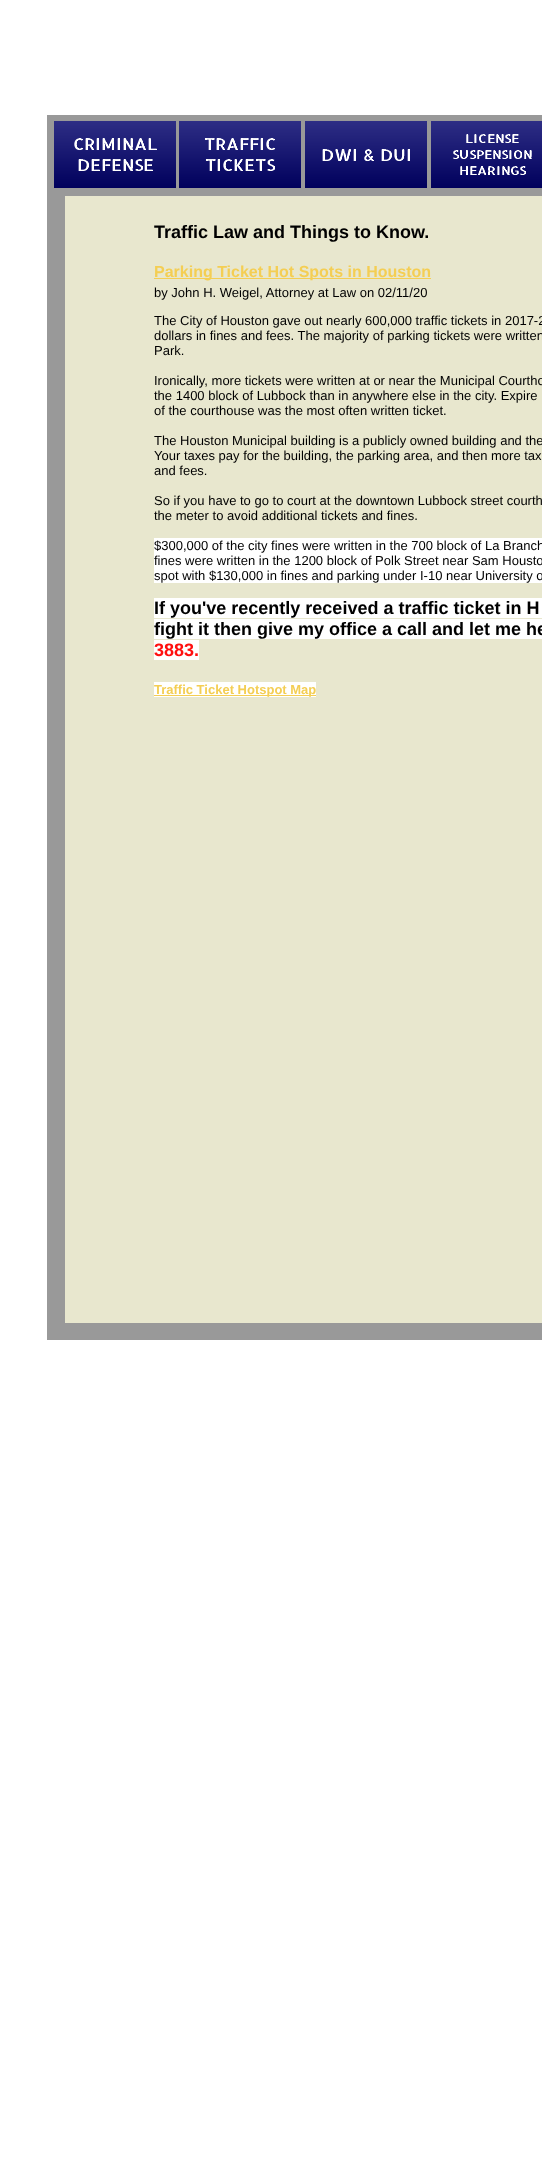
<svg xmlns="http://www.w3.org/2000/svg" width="542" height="2168">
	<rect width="100%" height="100%" fill="#FFFFFF" />
	<rect x="47" y="115" width="495" height="1225" fill="#999999" />
	<image x="54" y="121" width="122" height="67" href="assets/img1.png" />
	<image x="179" y="121" width="122" height="67" href="assets/img2.png" />
	<image x="305" y="121" width="122" height="67" href="assets/img3.png" />
	<image x="431" y="121" width="111" height="67" href="assets/img4.png" />
	<rect x="65" y="196" width="477" height="1127" fill="#E8E7CE" />
	<text x="154" y="238" font-family="Liberation Sans" font-size="18" font-weight="700" fill="#000000">Traffic Law and Things to Know.</text>
	<rect x="154" y="278" width="277" height="1" fill="#F4CE53" />
	<text x="154" y="277" font-family="Liberation Sans" font-size="16" font-weight="700" fill="#F4CE53">Parking Ticket Hot Spots in Houston</text>
	<g font-family="Liberation Sans" font-size="13" fill="#000000">
		<text x="154" y="297">by John H. Weigel, Attorney at Law on 02/11/20</text>
		<text x="154" y="325">The City of Houston gave out nearly 600,000 traffic tickets in 2017-2</text>
		<text x="154" y="340">dollars in fines and fees. The majority of parking tickets were written</text>
		<text x="154" y="355">Park.</text>
		<text x="154" y="385">Ironically, more tickets were written at or near the Municipal Courtho</text>
		<text x="154" y="400">the 1400 block of Lubbock than in anywhere else in the city. Expire</text>
		<text x="154" y="415">of the courthouse was the most often written ticket.</text>
		<text x="154" y="445">The Houston Municipal building is a publicly owned building and the</text>
		<text x="154" y="460">Your taxes pay for the building, the parking area, and then more tax</text>
		<text x="154" y="475">and fees.</text>
		<text x="154" y="505">So if you have to go to court at the downtown Lubbock street courth</text>
		<text x="154" y="520">the meter to avoid additional tickets and fines.</text>
	</g>
	<rect x="154" y="538" width="388" height="45" fill="#FFFFFF" />
	<g font-family="Liberation Sans" font-size="13" fill="#000000">
		<text x="154" y="550">$300,000 of the city fines were written in the 700 block of La Branch</text>
		<text x="154" y="565">fines were written in the 1200 block of Polk Street near Sam Housto</text>
		<text x="154" y="580">spot with $130,000 in fines and parking under I-10 near University o</text>
	</g>
	<rect x="154" y="598" width="388" height="20" fill="#FFFFFF" />
	<text x="154" y="614" font-family="Liberation Sans" font-size="18" font-weight="700" fill="#000000">If you've recently received a traffic ticket in H</text>
	<rect x="154" y="619" width="388" height="20" fill="#FFFFFF" />
	<text x="154" y="635" font-family="Liberation Sans" font-size="18" font-weight="700" fill="#000000">fight it then give my office a call and let me he</text>
	<rect x="154" y="640" width="45" height="20" fill="#FFFFFF" />
	<text x="154" y="656" font-family="Liberation Sans" font-size="18" font-weight="700" fill="#FF0F0F">3883.</text>
	<rect x="154" y="682" width="162" height="15" fill="#FFFFFF" />
	<rect x="154" y="695" width="162" height="1" fill="#F4CE53" />
	<text x="154" y="694" font-family="Liberation Sans" font-size="13" font-weight="700" fill="#F4CE53">Traffic Ticket Hotspot Map</text>
</svg>
